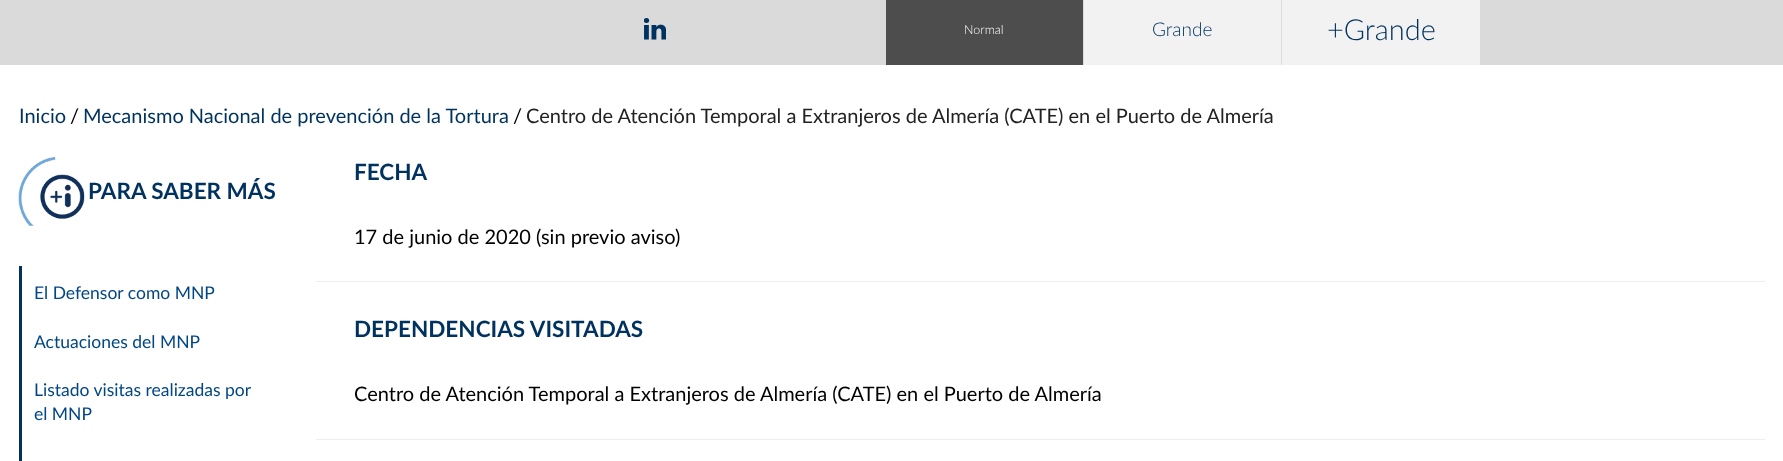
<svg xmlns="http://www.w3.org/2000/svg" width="1783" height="461">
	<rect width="100%" height="100%" fill="#FFFFFF" />
	<rect x="0" y="0" width="1783" height="65" fill="#DADADA" />
	<image x="644" y="18" width="22" height="22" href="assets/img1.png" />
	<rect x="1084" y="0" width="396" height="65" fill="#F2F2F2" />
	<rect x="886" y="0" width="197" height="65" fill="#4D4D4D" />
	<rect x="1083" y="0" width="1" height="65" fill="#DDDDDD" />
	<text x="964" y="34" font-family="Lato" font-size="12.5" font-weight="300" fill="#FFFFFF">Normal</text>
	<rect x="1281" y="0" width="1" height="65" fill="#DDDDDD" />
	<text x="1152" y="36" font-family="Lato" font-size="19" font-weight="300" fill="#00325F">Grande</text>
	<text x="1327" y="40" font-family="Lato" font-size="29" font-weight="300" fill="#00325F">+Grande</text>
	<text x="19" y="123" font-family="Lato" font-size="20" fill="#00325F">Inicio</text>
	<text x="70" y="123" font-family="Lato" font-size="20" fill="#000000">/</text>
	<text x="83" y="123" font-family="Lato" font-size="20" fill="#00325F">Mecanismo Nacional de prevención de la Tortura</text>
	<text x="513" y="123" font-family="Lato" font-size="20" fill="#000000">/</text>
	<text x="526" y="123" font-family="Lato" font-size="20" fill="#222222">Centro de Atención Temporal a Extranjeros de Almería (CATE) en el Puerto de Almería</text>
	<image x="18" y="157" width="67" height="69" href="assets/img2.png" />
	<text x="88" y="199" font-family="Lato" font-size="22.5" font-weight="700" fill="#00325F">PARA SABER MÁS</text>
	<rect x="19" y="266" width="3" height="195" fill="#00325F" />
	<g font-family="Lato" font-size="17.5" fill="#004685">
		<text x="34" y="299">El Defensor como MNP</text>
		<text x="34" y="348">Actuaciones del MNP</text>
		<text x="34" y="396">Listado visitas realizadas por</text>
		<text x="34" y="420">el MNP</text>
	</g>
	<text x="354" y="180" font-family="Lato" font-size="22.5" font-weight="700" fill="#00325F">FECHA</text>
	<text x="354" y="244" font-family="Lato" font-size="20" fill="#000000">17 de junio de 2020 (sin previo aviso)</text>
	<rect x="316" y="281" width="1449" height="1" fill="#EEEEEE" />
	<text x="354" y="337" font-family="Lato" font-size="22.5" font-weight="700" fill="#00325F">DEPENDENCIAS VISITADAS</text>
	<text x="354" y="401" font-family="Lato" font-size="20" fill="#000000">Centro de Atención Temporal a Extranjeros de Almería (CATE) en el Puerto de Almería</text>
	<rect x="316" y="439" width="1449" height="1" fill="#EEEEEE" />
</svg>
